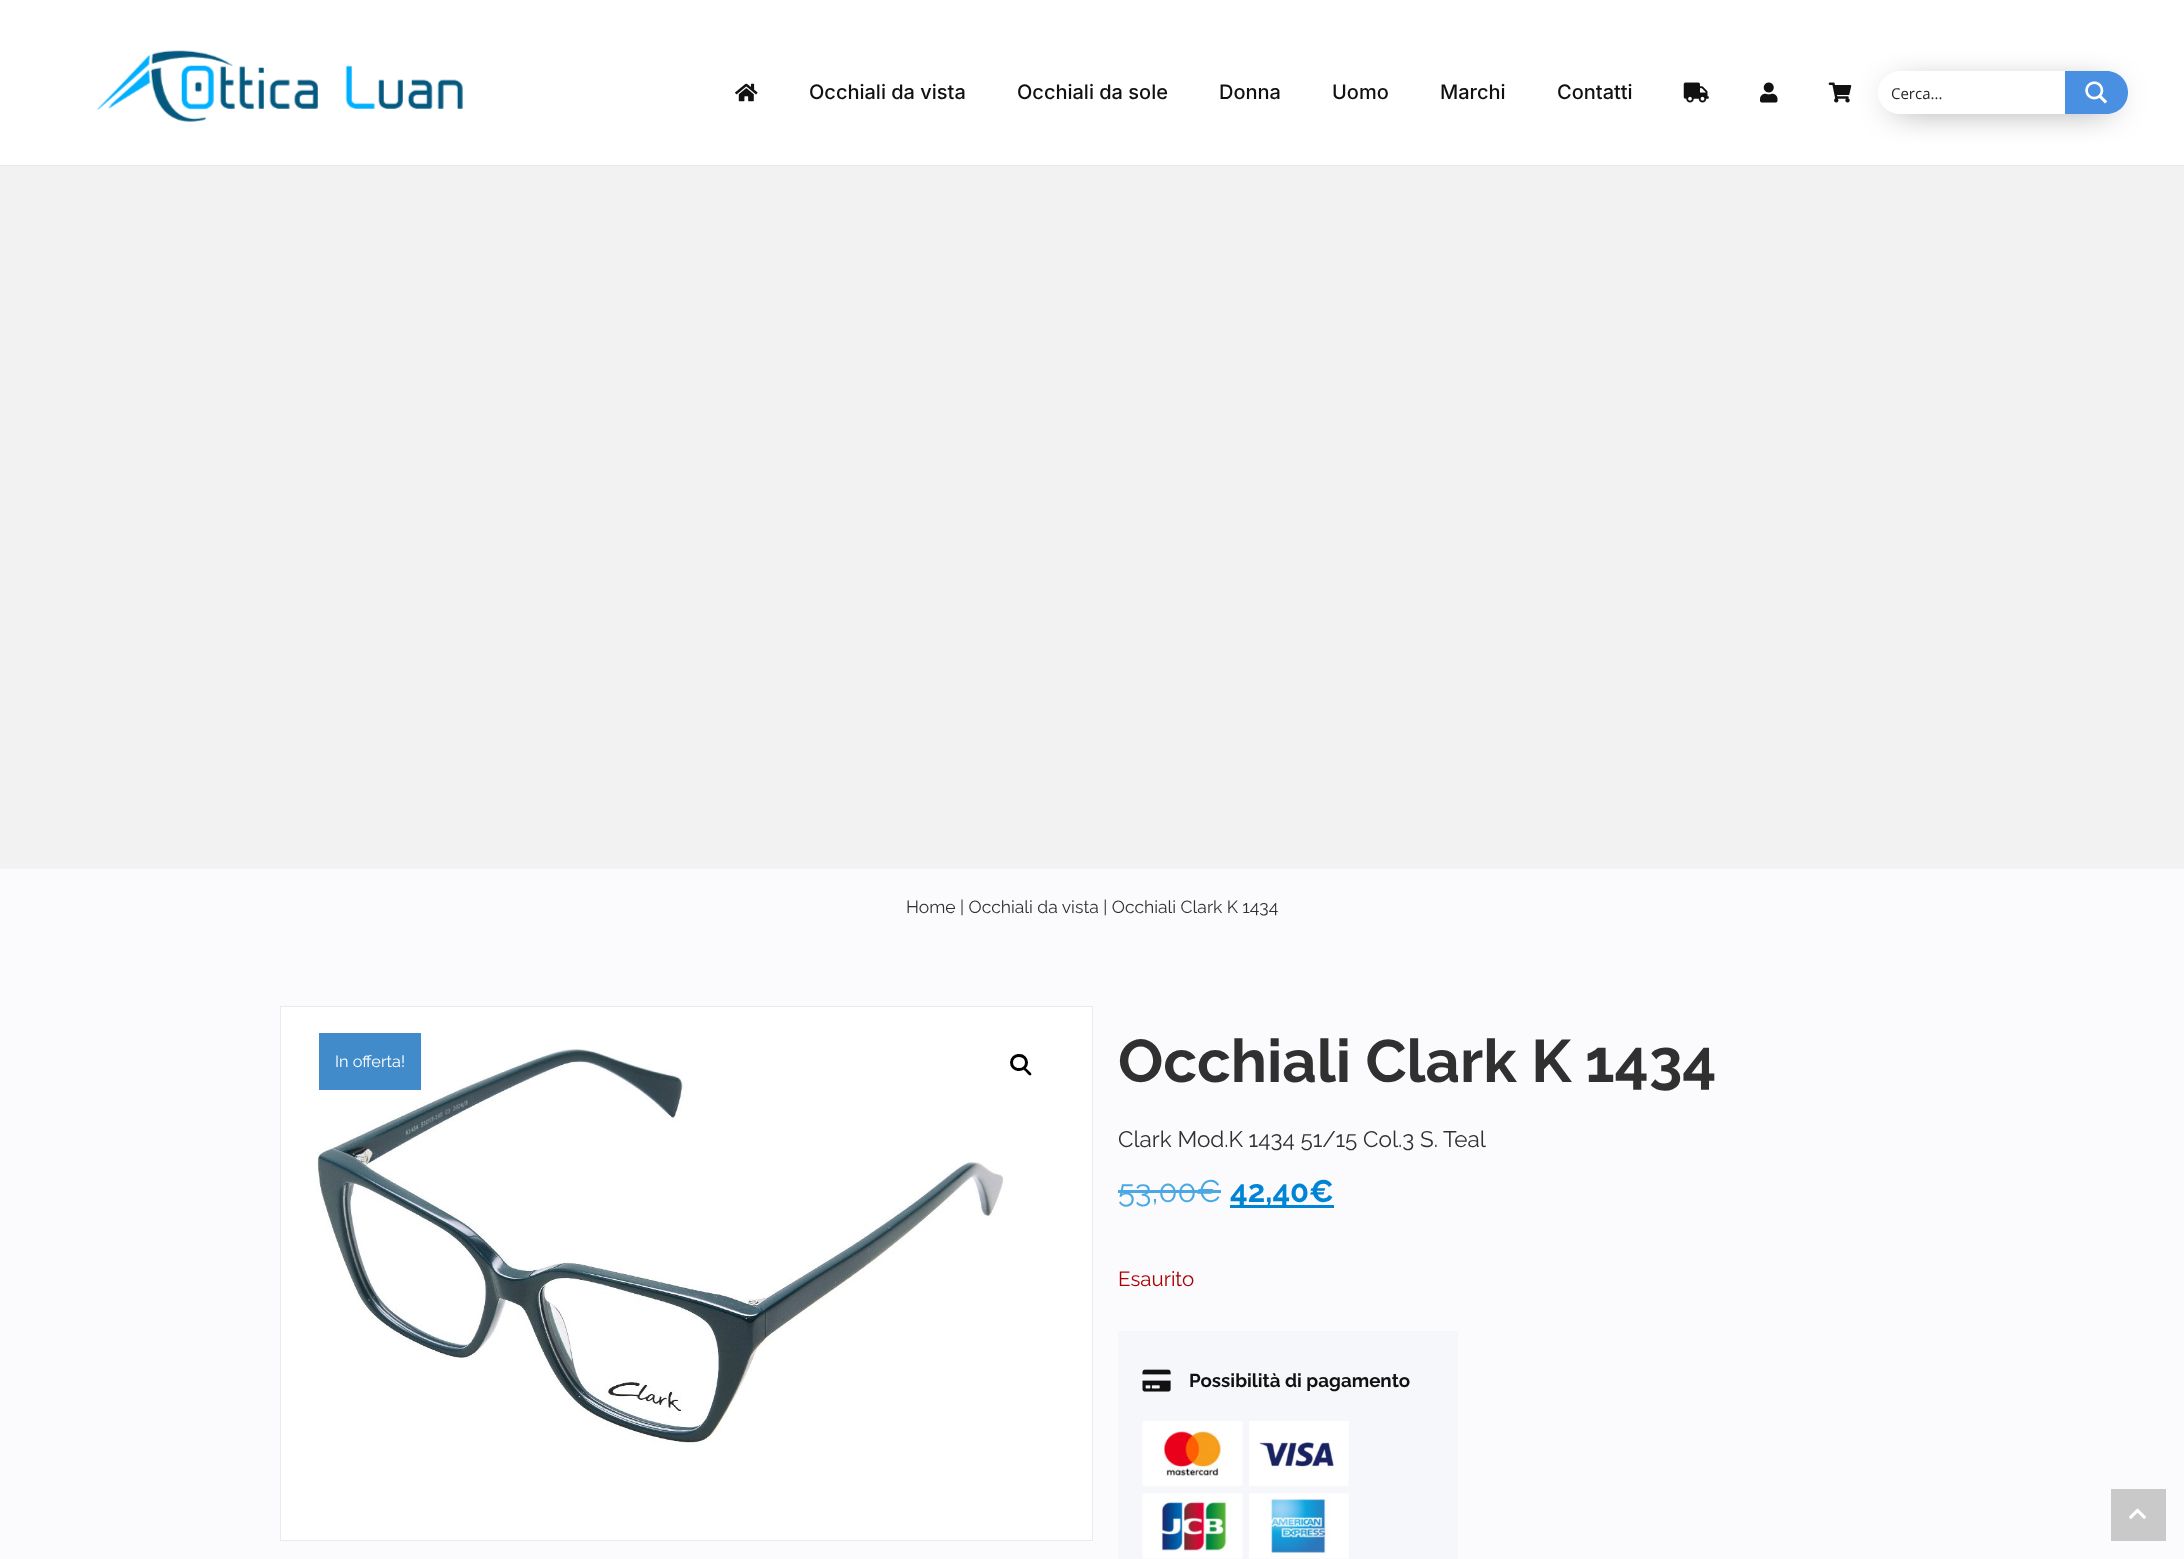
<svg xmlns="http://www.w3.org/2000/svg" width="2184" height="1559">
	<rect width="100%" height="100%" fill="#F2F2F2" />
	<rect x="0" y="0" width="2184" height="165" fill="#FFFFFF" />
	<rect x="0" y="165" width="2184" height="1" fill="#E8E8E8" />
	<image x="96" y="50" width="368" height="72" href="assets/img1.png" />
	<image x="735" y="83" width="23" height="19" href="assets/img2.png" />
	<g font-family="Inter" font-size="20" font-weight="500" fill="#111111">
		<text x="809" y="99">Occhiali da vista</text>
		<text x="1017" y="99">Occhiali da sole</text>
		<text x="1219" y="99">Donna</text>
		<text x="1332" y="99">Uomo</text>
		<text x="1440" y="99">Marchi</text>
		<text x="1557" y="99">Contatti</text>
	</g>
	<image x="1683" y="82" width="26" height="21" href="assets/img3.png" />
	<image x="1760" y="82" width="18" height="21" href="assets/img4.png" />
	<image x="1828" y="82" width="24" height="21" href="assets/img5.png" />
	<rect x="1894" y="93" width="217" height="10" rx="5" fill="#000000" filter="blur(17.5px)" />
	<rect x="1878" y="71" width="250" height="43" rx="21.5" fill="#FFFFFF" />
	<text x="1891" y="99" font-family="Open Sans" font-size="15" fill="#262626">Cerca...</text>
	<path d="M2065 71H2106.5C2118.5 71 2128 80.5 2128 92.5C2128 104.5 2118.5 114 2106.5 114H2065Z" fill="#4A90E2" />
	<image x="2085" y="81" width="23" height="23" href="assets/img6.png" />
	<rect x="0" y="869" width="2184" height="690" fill="#FBFBFD" />
	<text x="906" y="913" font-family="Raleway" font-size="17.5" fill="#303030">Home | Occhiali da vista | Occhiali Clark K 1434</text>
	<rect x="280.5" y="1006.5" width="812" height="534" fill="#FFFFFF" stroke="#EAEAEA" />
	<image x="316" y="1049" width="689" height="396" href="assets/img7.png" />
	<rect x="1011.5" y="1055.5" width="15" height="14" rx="7" fill="none" stroke="#000000" stroke-width="3" />
	<path d="M1024 1068C1025.5 1066.5 1027.5 1070 1028.5 1070.5C1029 1071.5 1032.5 1073.5 1031 1075C1029.5 1076.5 1027.5 1073.5 1026.5 1072.5C1026 1071.5 1022.5 1069.5 1024 1068Z" fill="#000000" />
	<rect x="319" y="1033" width="102" height="57" fill="#428BCA" />
	<text x="335" y="1067" font-family="Raleway" font-size="16.25" fill="#FFFFFF">In offerta!</text>
	<text x="1118" y="1082" font-family="Raleway" font-size="60" font-weight="700" fill="#303030">Occhiali Clark K 1434</text>
	<text x="1118" y="1147" font-family="Raleway" font-size="22.5" fill="#303030">Clark Mod.K 1434 51/15 Col.3 S. Teal</text>
	<text x="1118" y="1202" font-family="Raleway" font-size="31" fill="#4BA8E2">53,00€</text>
	<rect x="1118" y="1190" width="103" height="3" fill="#4BA8E2" />
	<rect x="1230" y="1205" width="104" height="3" fill="#0084D6" />
	<text x="1230" y="1202" font-family="Raleway" font-size="31" font-weight="700" fill="#0084D6">42,40€</text>
	<text x="1118" y="1286" font-family="Raleway" font-size="20.5" fill="#AA0000">Esaurito</text>
	<rect x="1118" y="1331" width="340" height="228" fill="#F6F7FA" />
	<image x="1142" y="1369" width="29" height="23" href="assets/img8.png" />
	<text x="1189" y="1387" font-family="Raleway" font-size="18.75" font-weight="700" fill="#111111">Possibilità di pagamento</text>
	<image x="1142" y="1421" width="101" height="65" href="assets/img9.png" />
	<image x="1249" y="1421" width="100" height="65" href="assets/img10.png" />
	<image x="1142" y="1493" width="101" height="66" href="assets/img11.png" />
	<image x="1249" y="1493" width="100" height="66" href="assets/img12.png" />
	<rect x="2111" y="1489" width="55" height="52" fill="#C9C9CA" />
	<image x="2129" y="1508" width="17" height="11" href="assets/img13.png" />
</svg>
